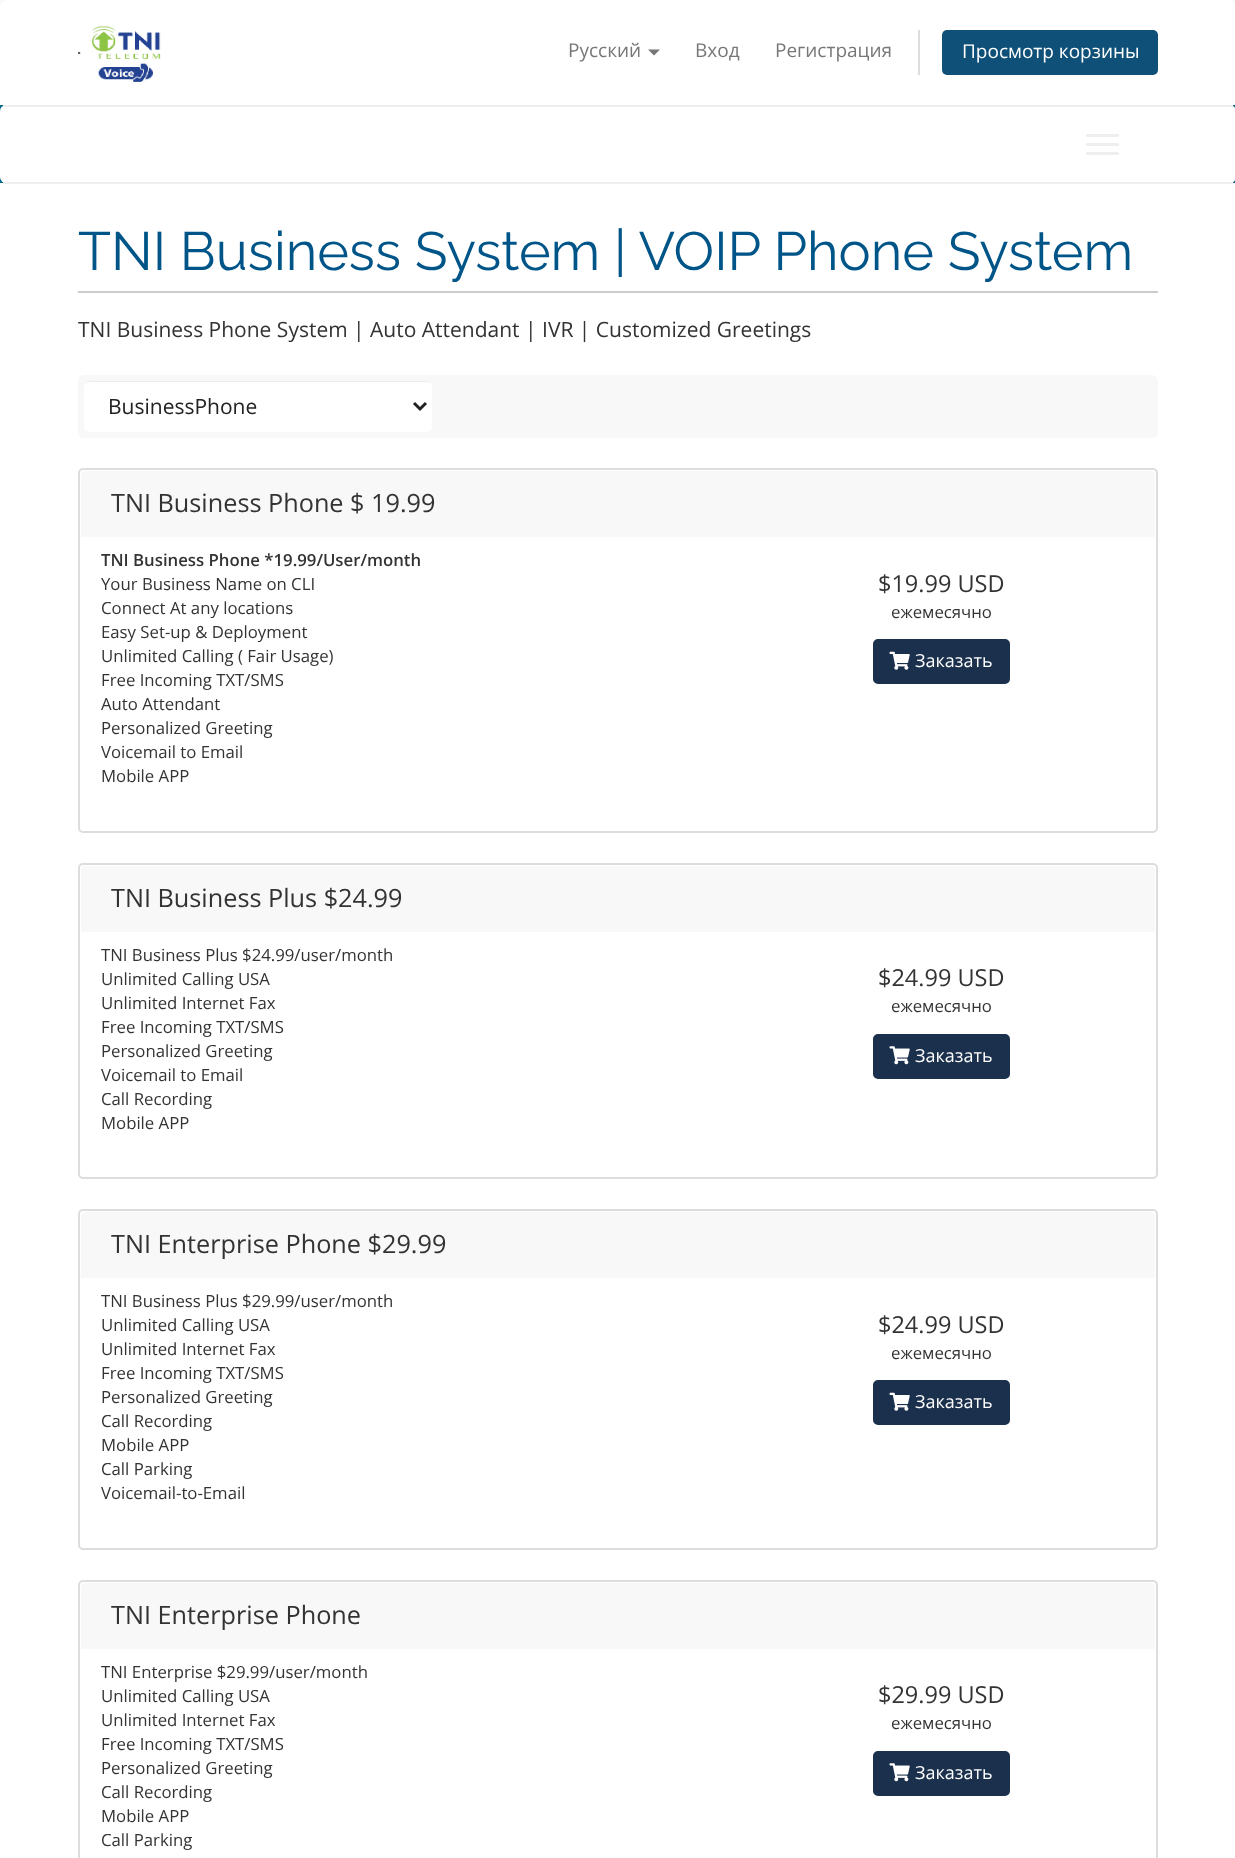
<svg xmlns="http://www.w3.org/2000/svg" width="1235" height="1858">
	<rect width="100%" height="100%" fill="#F8F8F8" />
	<path d="M8 0H1228C1232.5 0 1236 3.5 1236 8V105H0V8C0 3.5 3.5 0 8 0Z" fill="#FFFFFF" />
	<image x="78" y="25" width="83" height="57" href="assets/img1.png" />
	<text x="568" y="57" font-family="Open Sans" font-size="19" fill="#777777">Русский</text>
	<path d="M648 49.5H660L654 55.5Z" fill="#777777" />
	<g font-family="Open Sans" font-size="19" fill="#777777">
		<text x="695" y="57">Вход</text>
		<text x="775" y="57">Регистрация</text>
	</g>
	<rect x="918" y="30" width="2" height="45" fill="#DDDDDD" />
	<rect x="942" y="30" width="216" height="45" rx="5" fill="#0E5077" />
	<text x="962" y="58" font-family="Open Sans" font-size="19" fill="#FFFFFF">Просмотр корзины</text>
	<rect x="0" y="105" width="1235" height="78" fill="#006687" />
	<rect x="0" y="105" width="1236" height="78" rx="6" fill="#FFFFFF" />
	<rect x="3" y="105" width="1230" height="2" fill="#EEEEEE" />
	<rect x="0" y="183" width="1235" height="1675" fill="#FFFFFF" />
	<rect x="3" y="182" width="1230" height="2" fill="#EEEEEE" />
	<rect x="1086" y="134" width="33" height="3" rx="1.5" fill="#EEEEEE" />
	<rect x="1086" y="143" width="33" height="3" rx="1.5" fill="#EEEEEE" />
	<rect x="1086" y="152" width="33" height="3" rx="1.5" fill="#EEEEEE" />
	<rect x="78" y="291" width="1080" height="2" fill="#CCCCCC" />
	<text x="78" y="270" font-family="Raleway" font-size="54" fill="#005588">TNI Business System | VOIP Phone System</text>
	<text x="78" y="337" font-family="Open Sans" font-size="21" fill="#333333">TNI Business Phone System | Auto Attendant | IVR | Customized Greetings</text>
	<rect x="78" y="375" width="1080" height="63" rx="6" fill="#F8F8F8" />
	<rect x="84" y="381" width="348" height="51" rx="5" fill="#FFFFFF" />
	<path d="M88 382H428C430 382 432 385 432 387C432 384 430 381 427 381H89C86 381 84 384 84 387C84 385 86 382 88 382Z" fill="#ECECEC" />
	<path d="M414 403L420 409L426 403" fill="none" stroke="#222222" stroke-width="3" />
	<text x="108" y="414" font-family="Open Sans" font-size="21" fill="#222222">BusinessPhone</text>
	<rect x="79" y="469" width="1078" height="363" rx="4" fill="none" stroke="#DDDDDD" stroke-width="2" />
	<path d="M86 471H1150C1153 471 1155 473 1155 476V537H81V476C81 473 83 471 86 471Z" fill="#F8F8F8" />
	<text x="111" y="512" font-family="Open Sans" font-size="25.25" fill="#333333">TNI Business Phone $ 19.99</text>
	<text x="101" y="566" font-family="Open Sans" font-size="16.75" font-weight="600" fill="#333333">TNI Business Phone *19.99/User/month</text>
	<g font-family="Open Sans" font-size="16.75" fill="#333333">
		<text x="101" y="590">Your Business Name on CLI</text>
		<text x="101" y="614">Connect At any locations</text>
		<text x="101" y="638">Easy Set-up &amp; Deployment</text>
		<text x="101" y="662">Unlimited Calling ( Fair Usage)</text>
		<text x="101" y="686">Free Incoming TXT/SMS</text>
		<text x="101" y="710">Auto Attendant</text>
		<text x="101" y="734">Personalized Greeting</text>
		<text x="101" y="758">Voicemail to Email</text>
		<text x="101" y="782">Mobile APP</text>
	</g>
	<text x="878" y="592" font-family="Open Sans" font-size="23.5" fill="#333333">$19.99 USD</text>
	<text x="891" y="618" font-family="Open Sans" font-size="16.75" fill="#333333">ежемесячно</text>
	<rect x="874" y="640" width="135" height="43" rx="4" fill="#1B304D" stroke="#1B304D" stroke-width="2" />
	<image x="889" y="651" width="21" height="19" href="assets/img2.png" />
	<text x="915" y="667" font-family="Open Sans" font-size="18" fill="#FFFFFF">Заказать</text>
	<rect x="79" y="864" width="1078" height="314" rx="4" fill="none" stroke="#DDDDDD" stroke-width="2" />
	<path d="M86 866H1150C1153 866 1155 868 1155 871V932H81V871C81 868 83 866 86 866Z" fill="#F8F8F8" />
	<text x="111" y="907" font-family="Open Sans" font-size="25.25" fill="#333333">TNI Business Plus $24.99</text>
	<g font-family="Open Sans" font-size="16.75" fill="#333333">
		<text x="101" y="961">TNI Business Plus $24.99/user/month</text>
		<text x="101" y="985">Unlimited Calling USA</text>
		<text x="101" y="1009">Unlimited Internet Fax</text>
		<text x="101" y="1033">Free Incoming TXT/SMS</text>
		<text x="101" y="1057">Personalized Greeting</text>
		<text x="101" y="1081">Voicemail to Email</text>
		<text x="101" y="1105">Call Recording</text>
		<text x="101" y="1129">Mobile APP</text>
	</g>
	<text x="878" y="986" font-family="Open Sans" font-size="23.5" fill="#333333">$24.99 USD</text>
	<text x="891" y="1012" font-family="Open Sans" font-size="16.75" fill="#333333">ежемесячно</text>
	<rect x="874" y="1035" width="135" height="43" rx="4" fill="#1B304D" stroke="#1B304D" stroke-width="2" />
	<image x="889" y="1046" width="21" height="19" href="assets/img3.png" />
	<text x="915" y="1062" font-family="Open Sans" font-size="18" fill="#FFFFFF">Заказать</text>
	<rect x="79" y="1210" width="1078" height="339" rx="4" fill="none" stroke="#DDDDDD" stroke-width="2" />
	<path d="M86 1212H1150C1153 1212 1155 1214 1155 1217V1278H81V1217C81 1214 83 1212 86 1212Z" fill="#F8F8F8" />
	<text x="111" y="1253" font-family="Open Sans" font-size="25.25" fill="#333333">TNI Enterprise Phone $29.99</text>
	<g font-family="Open Sans" font-size="16.75" fill="#333333">
		<text x="101" y="1307">TNI Business Plus $29.99/user/month</text>
		<text x="101" y="1331">Unlimited Calling USA</text>
		<text x="101" y="1355">Unlimited Internet Fax</text>
		<text x="101" y="1379">Free Incoming TXT/SMS</text>
		<text x="101" y="1403">Personalized Greeting</text>
		<text x="101" y="1427">Call Recording</text>
		<text x="101" y="1451">Mobile APP</text>
		<text x="101" y="1475">Call Parking</text>
		<text x="101" y="1499">Voicemail-to-Email</text>
	</g>
	<text x="878" y="1333" font-family="Open Sans" font-size="23.5" fill="#333333">$24.99 USD</text>
	<text x="891" y="1359" font-family="Open Sans" font-size="16.75" fill="#333333">ежемесячно</text>
	<rect x="874" y="1381" width="135" height="43" rx="4" fill="#1B304D" stroke="#1B304D" stroke-width="2" />
	<image x="889" y="1392" width="21" height="19" href="assets/img2.png" />
	<text x="915" y="1408" font-family="Open Sans" font-size="18" fill="#FFFFFF">Заказать</text>
	<rect x="79" y="1581" width="1078" height="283" rx="4" fill="none" stroke="#DDDDDD" stroke-width="2" />
	<path d="M86 1583H1150C1153 1583 1155 1585 1155 1588V1649H81V1588C81 1585 83 1583 86 1583Z" fill="#F8F8F8" />
	<text x="111" y="1624" font-family="Open Sans" font-size="25.25" fill="#333333">TNI Enterprise Phone</text>
	<g font-family="Open Sans" font-size="16.75" fill="#333333">
		<text x="101" y="1678">TNI Enterprise $29.99/user/month</text>
		<text x="101" y="1702">Unlimited Calling USA</text>
		<text x="101" y="1726">Unlimited Internet Fax</text>
		<text x="101" y="1750">Free Incoming TXT/SMS</text>
		<text x="101" y="1774">Personalized Greeting</text>
		<text x="101" y="1798">Call Recording</text>
		<text x="101" y="1822">Mobile APP</text>
		<text x="101" y="1846">Call Parking</text>
	</g>
	<text x="878" y="1703" font-family="Open Sans" font-size="23.5" fill="#333333">$29.99 USD</text>
	<text x="891" y="1729" font-family="Open Sans" font-size="16.75" fill="#333333">ежемесячно</text>
	<rect x="874" y="1752" width="135" height="43" rx="4" fill="#1B304D" stroke="#1B304D" stroke-width="2" />
	<image x="889" y="1763" width="21" height="19" href="assets/img3.png" />
	<text x="915" y="1779" font-family="Open Sans" font-size="18" fill="#FFFFFF">Заказать</text>
</svg>
